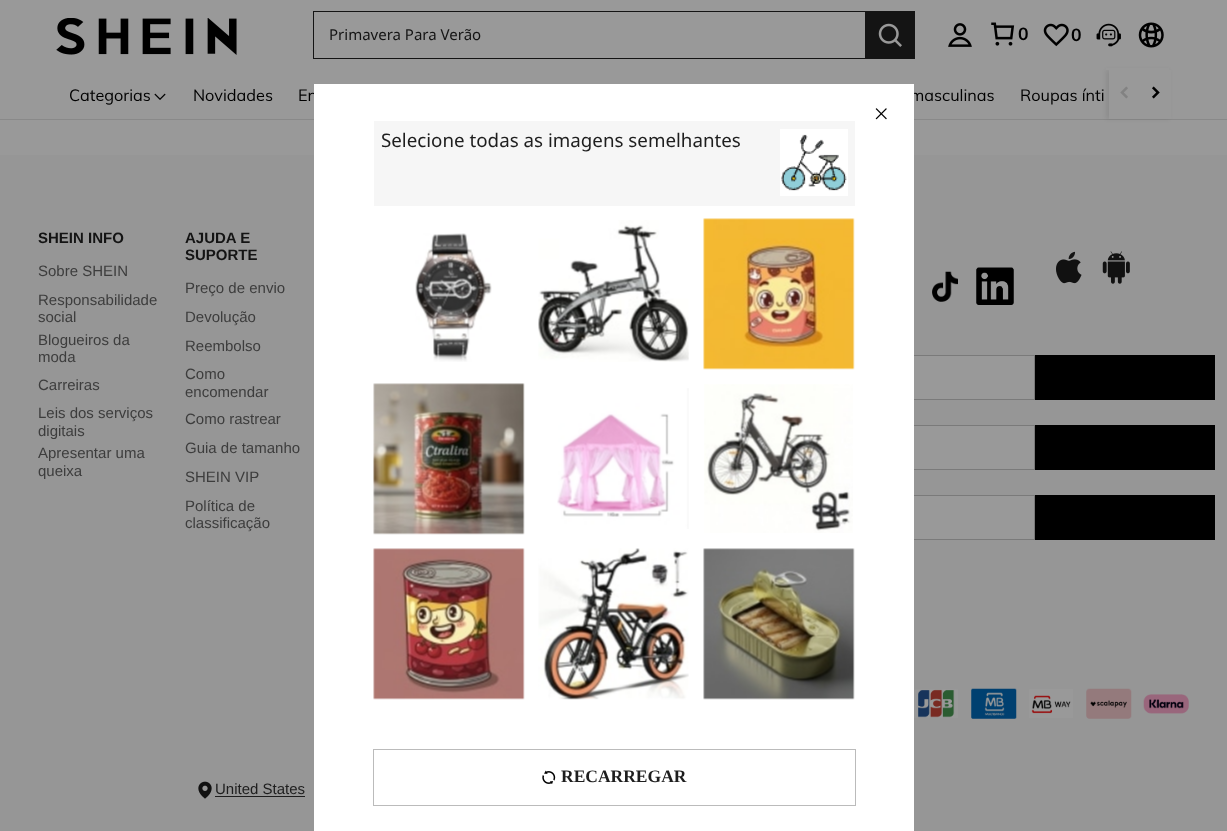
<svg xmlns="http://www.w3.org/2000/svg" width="1227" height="831">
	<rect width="100%" height="100%" fill="#999999" />
	<rect x="0" y="119" width="1227" height="1" fill="#898989" />
	<rect x="1106" y="70" width="63" height="49" fill="#000000" fill-opacity="0.08" filter="blur(2px)" />
	<rect x="1106" y="68" width="63" height="2" fill="#999999" />
	<image x="56" y="18" width="181" height="37" href="assets/img1.png" />
	<rect x="313" y="11" width="552" height="1" fill="#141414" />
	<rect x="313" y="58" width="552" height="1" fill="#141414" />
	<rect x="313" y="11" width="1" height="48" fill="#141414" />
	<text x="329" y="40" font-family="Noto Sans" font-size="15" fill="#141414">Primavera Para Verão</text>
	<rect x="865" y="11" width="50" height="48" fill="#141414" />
	<image x="878" y="23" width="24" height="24" href="assets/img2.png" />
	<image x="948" y="23" width="24" height="24" href="assets/img3.png" />
	<image x="991" y="22" width="24" height="24" href="assets/img4.png" />
	<text x="1018" y="40" font-family="Muli" font-size="17.5" font-weight="700" fill="#000000">0</text>
	<image x="1043" y="23" width="26" height="24" href="assets/img5.png" />
	<text x="1071" y="41" font-family="Muli" font-size="17.5" font-weight="700" fill="#000000">0</text>
	<image x="1096" y="23" width="25" height="24" href="assets/img6.png" />
	<image x="1138" y="22" width="26" height="26" href="assets/img7.png" />
	<text x="69" y="101" font-family="Muli" font-size="16.25" fill="#000000">Categorias</text>
	<image x="154" y="93" width="12" height="7" href="assets/img8.png" />
	<g font-family="Muli" font-size="16.25" fill="#000000">
		<text x="193" y="101">Novidades</text>
		<text x="298" y="101">En</text>
		<text x="910" y="101">masculinas</text>
		<text x="1020" y="101">Roupas ínti</text>
	</g>
	<rect x="1109" y="70" width="62" height="49" fill="#999999" />
	<image x="1120" y="86" width="8" height="13" href="assets/img9.png" />
	<image x="1152" y="86" width="8" height="13" href="assets/img10.png" />
	<rect x="0" y="155" width="1227" height="676" fill="#969696" />
	<text x="38" y="243" font-family="Liberation Sans" font-size="15" font-weight="700" fill="#141414">SHEIN INFO</text>
	<g font-family="Liberation Sans" font-size="15" fill="#3D3D3D">
		<text x="38" y="276">Sobre SHEIN</text>
		<text x="38" y="305">Responsabilidade</text>
		<text x="38" y="322">social</text>
		<text x="38" y="345">Blogueiros da</text>
		<text x="38" y="362">moda</text>
		<text x="38" y="390">Carreiras</text>
		<text x="38" y="418">Leis dos serviços</text>
		<text x="38" y="436">digitais</text>
		<text x="38" y="458">Apresentar uma</text>
		<text x="38" y="476">queixa</text>
	</g>
	<g font-family="Liberation Sans" font-size="15" font-weight="700" fill="#141414">
		<text x="185" y="243">AJUDA E</text>
		<text x="185" y="260">SUPORTE</text>
	</g>
	<g font-family="Liberation Sans" font-size="15" fill="#3D3D3D">
		<text x="185" y="293">Preço de envio</text>
		<text x="185" y="322">Devolução</text>
		<text x="185" y="351">Reembolso</text>
		<text x="185" y="379">Como</text>
		<text x="185" y="397">encomendar</text>
		<text x="185" y="424">Como rastrear</text>
		<text x="185" y="453">Guia de tamanho</text>
		<text x="185" y="482">SHEIN VIP</text>
		<text x="185" y="511">Política de</text>
		<text x="185" y="528">classificação</text>
	</g>
	<image x="932" y="271" width="26" height="31" href="assets/img11.png" />
	<image x="976" y="267" width="38" height="38" href="assets/img12.png" />
	<image x="1056" y="251" width="26" height="33" href="assets/img13.png" />
	<image x="1102" y="251" width="28" height="33" href="assets/img14.png" />
	<rect x="914" y="356" width="120" height="43" fill="#999999" />
	<rect x="626.5" y="355.5" width="408" height="44" fill="none" stroke="#7A7A7A" />
	<rect x="1035" y="355" width="180" height="45" fill="#000000" />
	<rect x="914" y="426" width="120" height="43" fill="#999999" />
	<rect x="726.5" y="425.5" width="308" height="44" fill="none" stroke="#7A7A7A" />
	<rect x="1035" y="425" width="180" height="45" fill="#000000" />
	<rect x="914" y="496" width="120" height="43" fill="#999999" />
	<rect x="726.5" y="495.5" width="308" height="44" fill="none" stroke="#7A7A7A" />
	<rect x="1035" y="495" width="180" height="45" fill="#000000" />
	<image x="914" y="689" width="44" height="29" href="assets/img15.png" />
	<image x="971" y="688" width="46" height="31" href="assets/img16.png" />
	<image x="1029" y="689" width="44" height="29" href="assets/img17.png" />
	<image x="1086" y="688" width="46" height="31" href="assets/img18.png" />
	<image x="1143" y="694" width="46" height="20" href="assets/img19.png" />
	<image x="198" y="781" width="14" height="18" href="assets/img20.png" />
	<text x="215" y="794" font-family="Liberation Sans" font-size="15" fill="#1E1E1E">United States</text>
	<rect x="215" y="796" width="90" height="1" fill="#1E1E1E" />
	<rect x="314" y="84" width="600" height="665" fill="#000000" fill-opacity="0.3" filter="blur(0.5px)" />
	<rect x="314" y="84" width="600" height="747" fill="#FFFFFF" />
	<image x="875" y="108" width="12" height="12" href="assets/img21.png" />
	<rect x="374" y="121" width="481" height="85" fill="#F6F6F6" />
	<text x="381" y="147" font-family="Noto Sans" font-size="18.75" fill="#1E1E1E">Selecione todas as imagens semelhantes</text>
	<rect x="780" y="129" width="68" height="67" fill="#FFFFFF" />
	<image x="781" y="134" width="66" height="57" href="assets/img22.png" />
	<image x="415" y="233" width="77" height="129" href="assets/img23.png" />
	<image x="538" y="220" width="151" height="142" href="assets/img24.png" />
	<image x="703" y="218" width="152" height="152" href="assets/img25.png" />
	<image x="373" y="383" width="152" height="152" href="assets/img26.png" />
	<image x="557" y="388" width="132" height="141" href="assets/img27.png" />
	<image x="704" y="384" width="149" height="149" href="assets/img28.png" />
	<image x="373" y="548" width="152" height="152" href="assets/img29.png" />
	<image x="538" y="548" width="151" height="152" href="assets/img30.png" />
	<image x="703" y="548" width="152" height="152" href="assets/img31.png" />
	<rect x="373.5" y="749.5" width="482" height="56" fill="none" stroke="#BBBBBB" />
	<image x="542" y="770" width="14" height="14" href="assets/img32.png" />
	<text x="561" y="782" font-family="Liberation Serif" font-size="17.5" font-weight="700" fill="#1E1E1E">RECARREGAR</text>
</svg>
